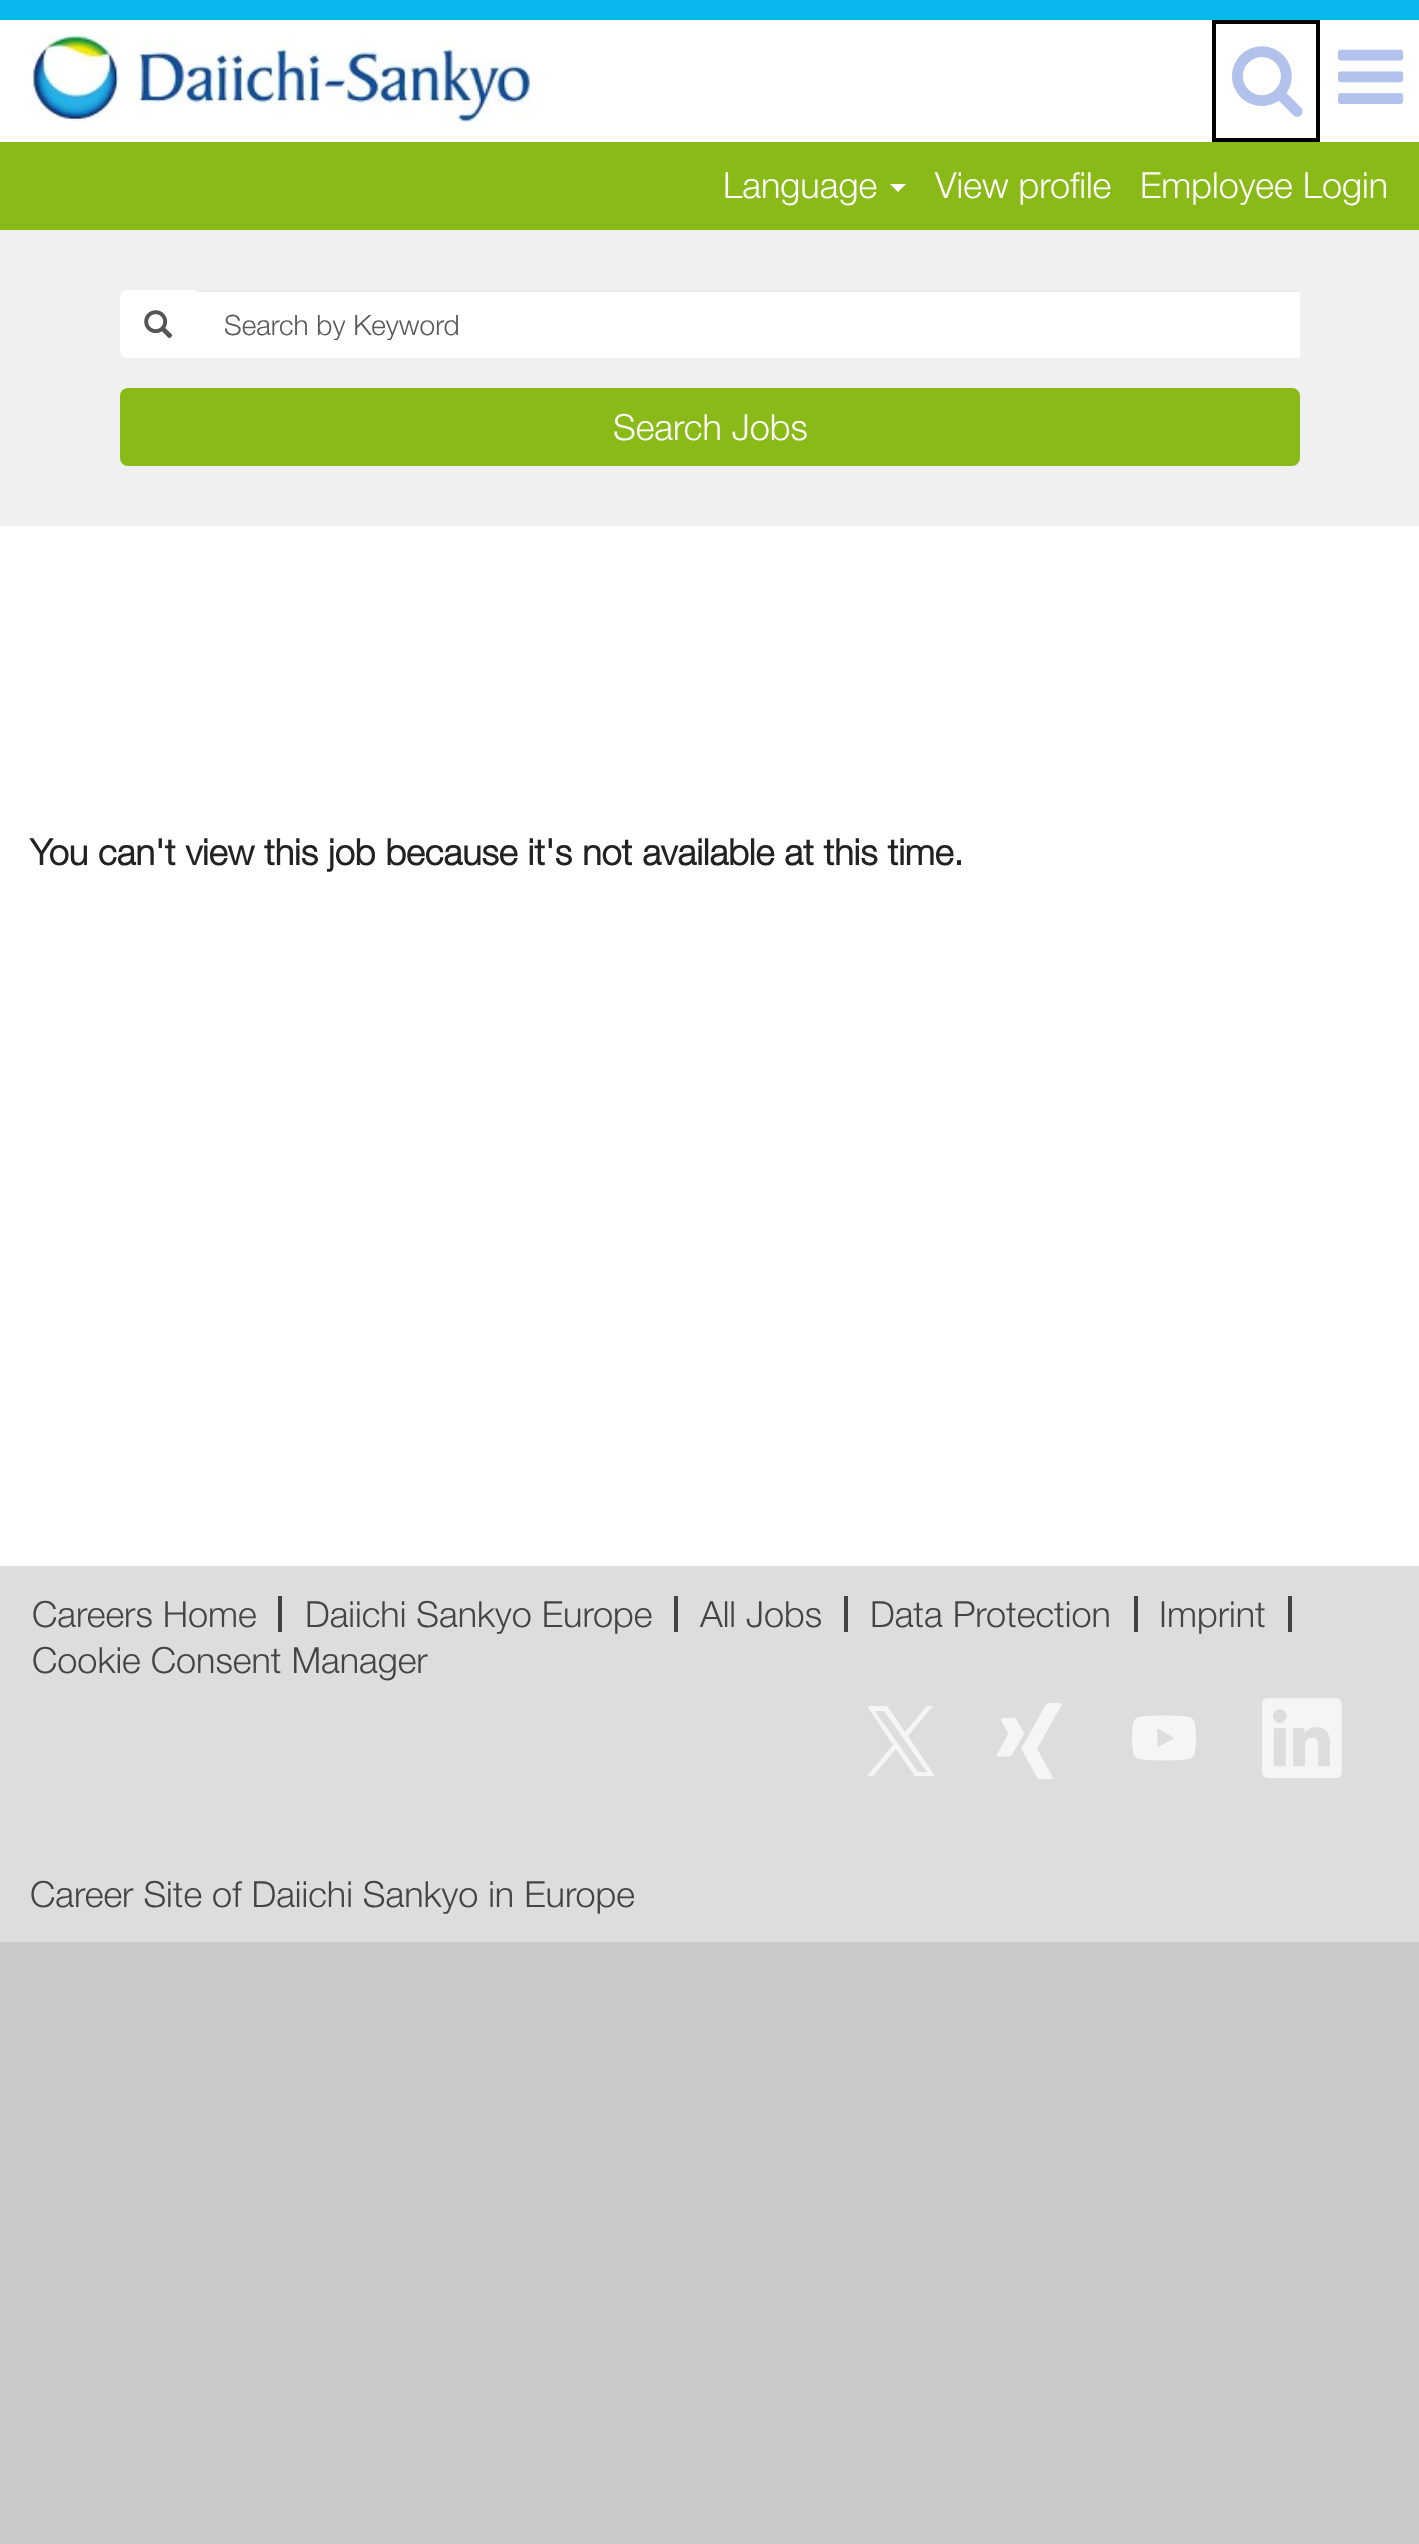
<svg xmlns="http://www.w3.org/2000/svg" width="1419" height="2544">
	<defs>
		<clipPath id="clip1"><rect x="220" y="306" width="1048" height="34" /></clipPath>
	</defs>
	<rect width="100%" height="100%" fill="#C9CAC8" />
	<rect x="0" y="20" width="1419" height="122" fill="#FFFFFF" />
	<rect x="0" y="0" width="1419" height="20" fill="#08B7EE" />
	<image x="32" y="36" width="506" height="86" href="assets/img1.png" />
	<rect x="1214" y="22" width="104" height="118" fill="none" stroke="#000000" stroke-width="4" />
	<image x="1232" y="46" width="71" height="71" href="assets/img2.png" />
	<image x="1338" y="49" width="66" height="55" href="assets/img3.png" />
	<rect x="0" y="142" width="1419" height="88" fill="#89BA17" />
	<text x="723" y="198" font-family="Helvetica Neue" font-size="36" font-weight="300" fill="#FFFFFF">Language</text>
	<path d="M890 184H906L898 192Z" fill="#FFFFFF" />
	<g font-family="Helvetica Neue" font-size="36" font-weight="300" fill="#FFFFFF">
		<text x="935" y="198">View profile</text>
		<text x="1140" y="198">Employee Login</text>
	</g>
	<rect x="0" y="526" width="1419" height="1040" fill="#FFFFFF" />
	<rect x="0" y="230" width="1419" height="296" fill="#F0F0F0" />
	<path d="M128 290H196V358H128C123.5 358 120 354.5 120 350V298C120 293.5 123.5 290 128 290Z" fill="#FFFFFF" />
	<image x="144" y="310" width="29" height="29" href="assets/img4.png" />
	<rect x="196" y="292" width="1104" height="66" fill="#FFFFFF" />
	<rect x="196" y="290" width="1104" height="2" fill="#ECECEC" />
	<g clip-path="url(#clip1)">
		<text x="224" y="335" font-family="Helvetica Neue" font-size="28" font-weight="300" fill="#595959">Search by Keyword</text>
	</g>
	<rect x="120" y="388" width="1180" height="78" rx="8" fill="#89BA17" />
	<text x="613" y="440" font-family="Helvetica Neue" font-size="36" font-weight="300" fill="#FFFFFF">Search Jobs</text>
	<text x="30" y="865" font-family="Helvetica Neue" font-size="36" font-weight="700" fill="#222222">You can't view this job because it's not available at this time.</text>
	<rect x="0" y="1566" width="1419" height="376" fill="#DDDDDD" />
	<rect x="278" y="1596" width="4" height="36" fill="#444444" />
	<text x="32" y="1627" font-family="Helvetica Neue" font-size="36" font-weight="300" fill="#444444">Careers Home</text>
	<rect x="674" y="1596" width="4" height="36" fill="#444444" />
	<text x="305" y="1627" font-family="Helvetica Neue" font-size="36" font-weight="300" fill="#444444">Daiichi Sankyo Europe</text>
	<rect x="844" y="1596" width="4" height="36" fill="#444444" />
	<text x="700" y="1627" font-family="Helvetica Neue" font-size="36" font-weight="300" fill="#444444">All Jobs</text>
	<rect x="1134" y="1596" width="4" height="36" fill="#444444" />
	<text x="870" y="1627" font-family="Helvetica Neue" font-size="36" font-weight="300" fill="#444444">Data Protection</text>
	<rect x="1288" y="1596" width="4" height="36" fill="#444444" />
	<g font-family="Helvetica Neue" font-size="36" font-weight="300" fill="#444444">
		<text x="1159" y="1627">Imprint</text>
		<text x="32" y="1673">Cookie Consent Manager</text>
	</g>
	<path d="M908 1736L933 1706H927L905 1732L887 1706H867L893 1745L867 1776H873L896 1749L915 1776H935ZM899 1745L875 1711H884L927 1772H918Z" fill="#F5F5F5" />
	<image x="997" y="1703" width="65" height="77" href="assets/img5.png" />
	<image x="1132" y="1715" width="64" height="46" href="assets/img6.png" />
	<image x="1262" y="1698" width="80" height="80" href="assets/img7.png" />
	<text x="30" y="1907" font-family="Helvetica Neue" font-size="36" font-weight="300" fill="#444444">Career Site of Daiichi Sankyo in Europe</text>
</svg>
